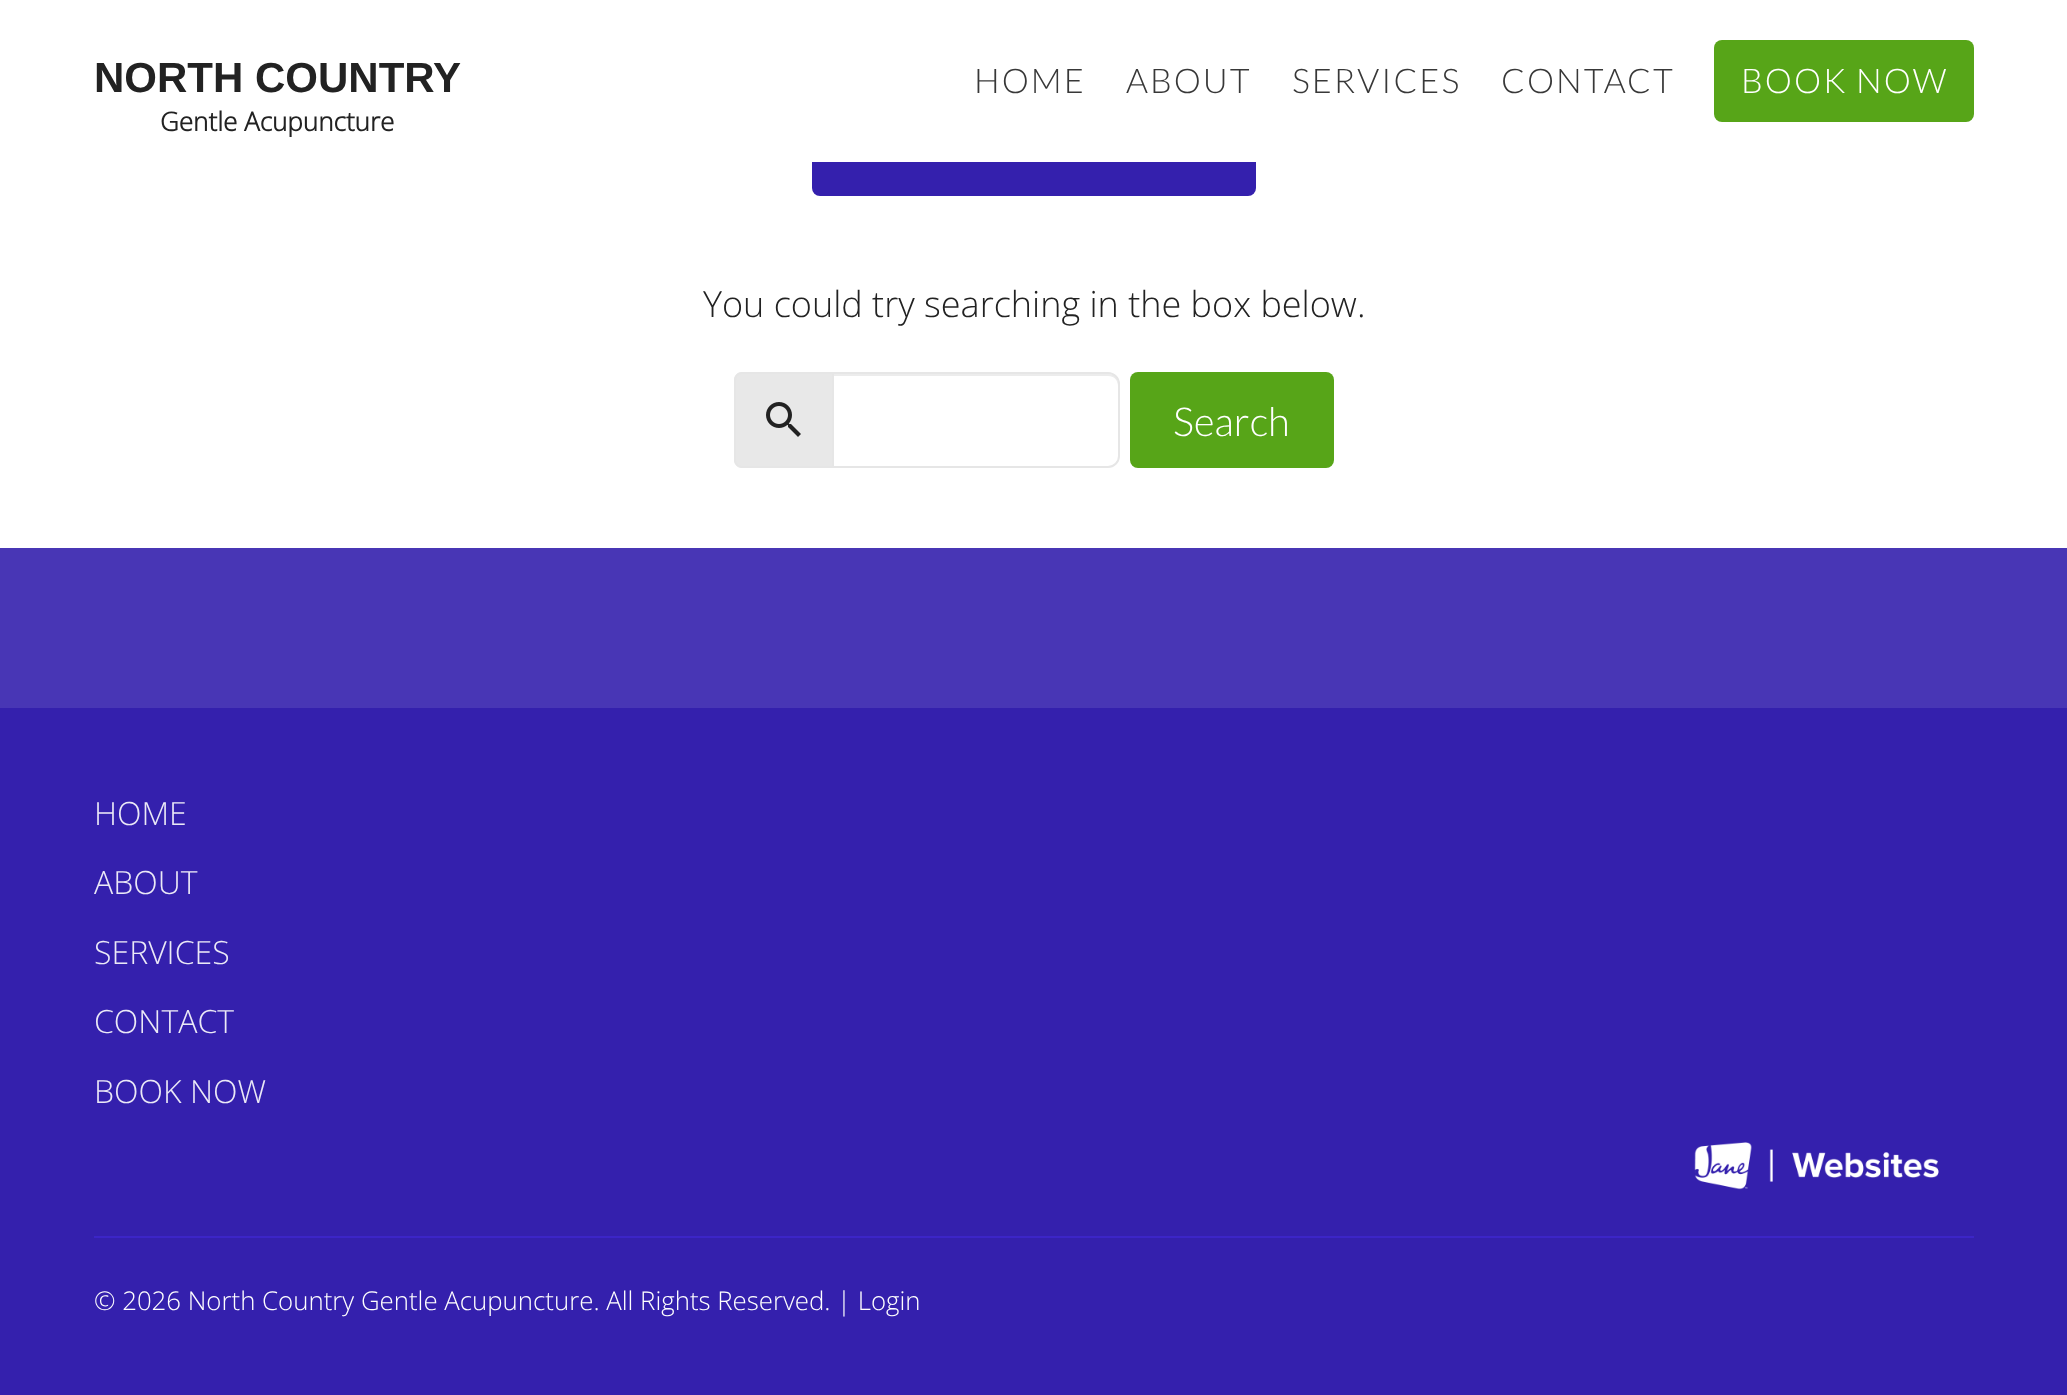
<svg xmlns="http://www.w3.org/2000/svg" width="2067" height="1395">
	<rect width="100%" height="100%" fill="#FFFFFF" />
	<text x="94" y="92" font-family="Liberation Sans" font-size="42" font-weight="700" fill="#222222">NORTH COUNTRY</text>
	<text x="160" y="131" font-family="Open Sans" font-size="26" font-weight="700" fill="#222222">Gentle Acupuncture</text>
	<g font-family="Lato" font-size="34" font-weight="300" letter-spacing="2" fill="#383838">
		<text x="974" y="93">HOME</text>
		<text x="1126" y="93">ABOUT</text>
		<text x="1292" y="93">SERVICES</text>
		<text x="1501" y="93">CONTACT</text>
	</g>
	<rect x="1714" y="40" width="260" height="82" rx="8" fill="#57A518" />
	<text x="1741" y="93" font-family="Lato" font-size="34" font-weight="300" letter-spacing="2" fill="#FFFFFF">BOOK NOW</text>
	<rect x="812" y="104" width="444" height="92" rx="8" fill="#3420AD" />
	<rect x="812" y="104" width="444" height="58" fill="#FFFFFF" />
	<text x="703" y="317" font-family="Open Sans" font-size="36" font-weight="300" fill="#222222">You could try searching in the box below.</text>
	<path d="M742 372H832V468H742C737.5 468 734 464.5 734 460V380C734 375.5 737.5 372 742 372Z" fill="#E8E8E8" />
	<path d="M742 372H832V468H742C738 468 734 464 734 460V380C734 376 738 372 742 372ZM742 374H832V466H742C739 466 736 463 736 460V380C736 377 739 374 742 374Z" fill="#E6E6E6" fill-rule="evenodd" />
	<image x="766" y="402" width="35" height="35" href="assets/img1.png" />
	<path d="M834 376H1108C1114 376 1118 380 1118 386V384C1118 378 1114 374 1108 374H834Z" fill="#ECECEC" />
	<path d="M833 373H1108C1114 373 1119 378 1119 384V456C1119 462 1114 467 1108 467H833Z" fill="none" stroke="#E6E6E6" stroke-width="2" />
	<rect x="1130" y="372" width="204" height="96" rx="8" fill="#57A518" />
	<text x="1173" y="436" font-family="Lato" font-size="40" font-weight="300" fill="#FFFFFF">Search</text>
	<rect x="0" y="548" width="2067" height="160" fill="#4836B5" />
	<rect x="0" y="708" width="2067" height="687" fill="#3420AD" />
	<g font-family="Open Sans" font-size="32" font-weight="300" fill="#EBE9F7">
		<text x="94" y="825">HOME</text>
		<text x="94" y="894">ABOUT</text>
		<text x="94" y="964">SERVICES</text>
		<text x="94" y="1033">CONTACT</text>
		<text x="94" y="1103">BOOK NOW</text>
	</g>
	<image x="1694" y="1142" width="245" height="48" href="assets/img2.png" />
	<rect x="94" y="1236" width="1880" height="2" fill="#3C25C7" />
	<g font-family="Open Sans" font-size="25.8" font-weight="300" fill="#FFFFFF">
		<text x="94" y="1310">© 2026 North Country Gentle Acupuncture. All Rights Reserved.</text>
		<text x="837" y="1310">| Login</text>
	</g>
</svg>
